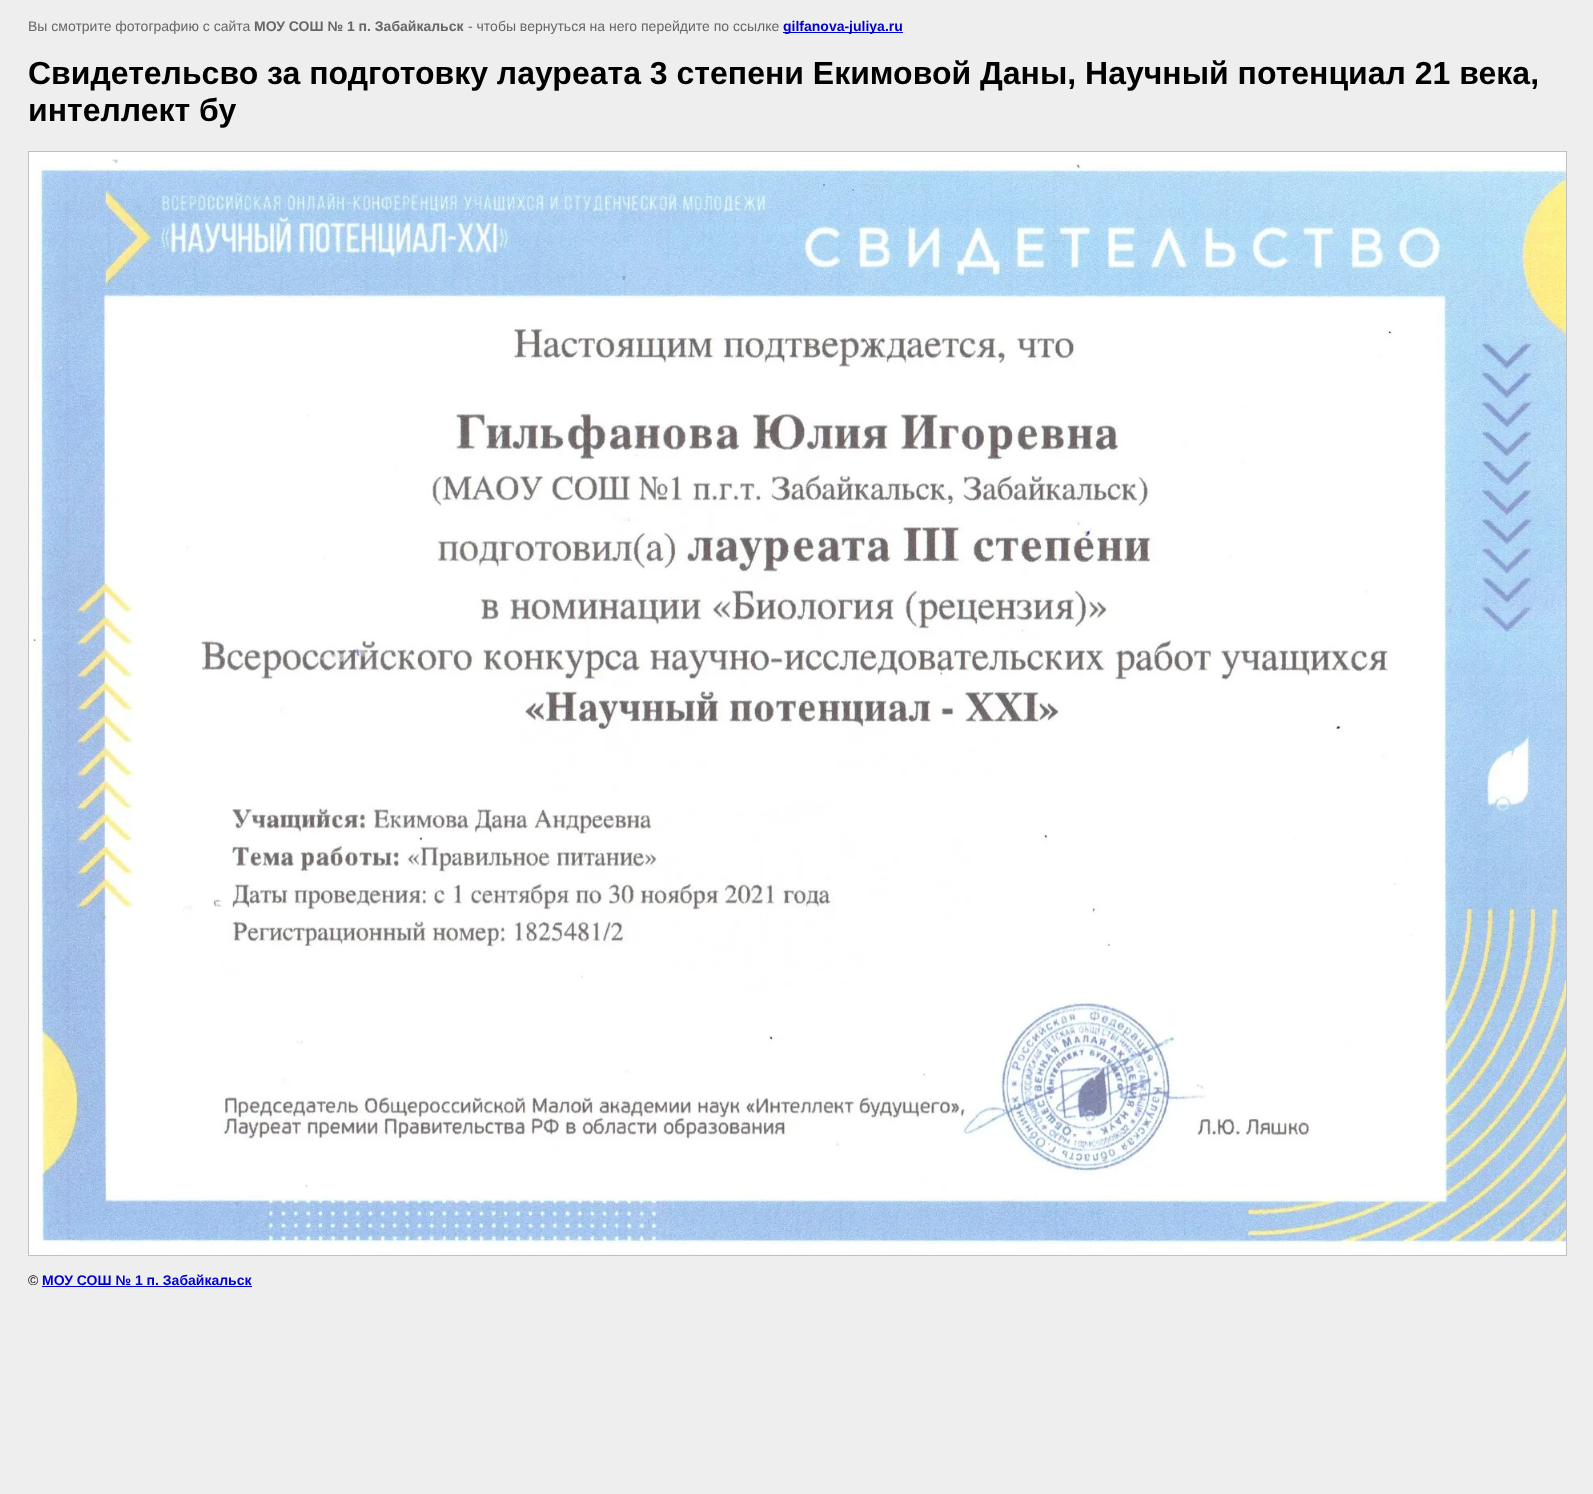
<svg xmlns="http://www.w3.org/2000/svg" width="1593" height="1494">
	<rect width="100%" height="100%" fill="#EEEEEE" />
	<text x="28" y="31" font-family="Liberation Sans" font-size="14" fill="#666666">Вы смотрите фотографию с сайта</text>
	<text x="254" y="31" font-family="Liberation Sans" font-size="14" font-weight="700" fill="#666666">МОУ СОШ № 1 п. Забайкальск</text>
	<text x="468" y="31" font-family="Liberation Sans" font-size="14" fill="#666666">- чтобы вернуться на него перейдите по ссылке</text>
	<rect x="783" y="32" width="120" height="1" fill="#0000CC" />
	<text x="783" y="31" font-family="Liberation Sans" font-size="14" font-weight="700" fill="#0000CC">gilfanova-juliya.ru</text>
	<g font-family="Liberation Sans" font-size="32" font-weight="700" fill="#000000">
		<text x="28" y="84">Свидетельсво за подготовку лауреата 3 степени Екимовой Даны, Научный потенциал 21 века,</text>
		<text x="28" y="121">интеллект бу</text>
	</g>
	<rect x="28.5" y="151.5" width="1538" height="1104" fill="none" stroke="#C0C0C0" />
	<image x="29" y="152" width="1537" height="1103" href="assets/img1.png" />
	<text x="28" y="1285" font-family="Liberation Sans" font-size="14" fill="#000000">©</text>
	<text x="42" y="1285" font-family="Liberation Sans" font-size="14" font-weight="700" fill="#0000CC">МОУ СОШ № 1 п. Забайкальск</text>
	<rect x="42" y="1286" width="210" height="1" fill="#0000CC" />
</svg>
